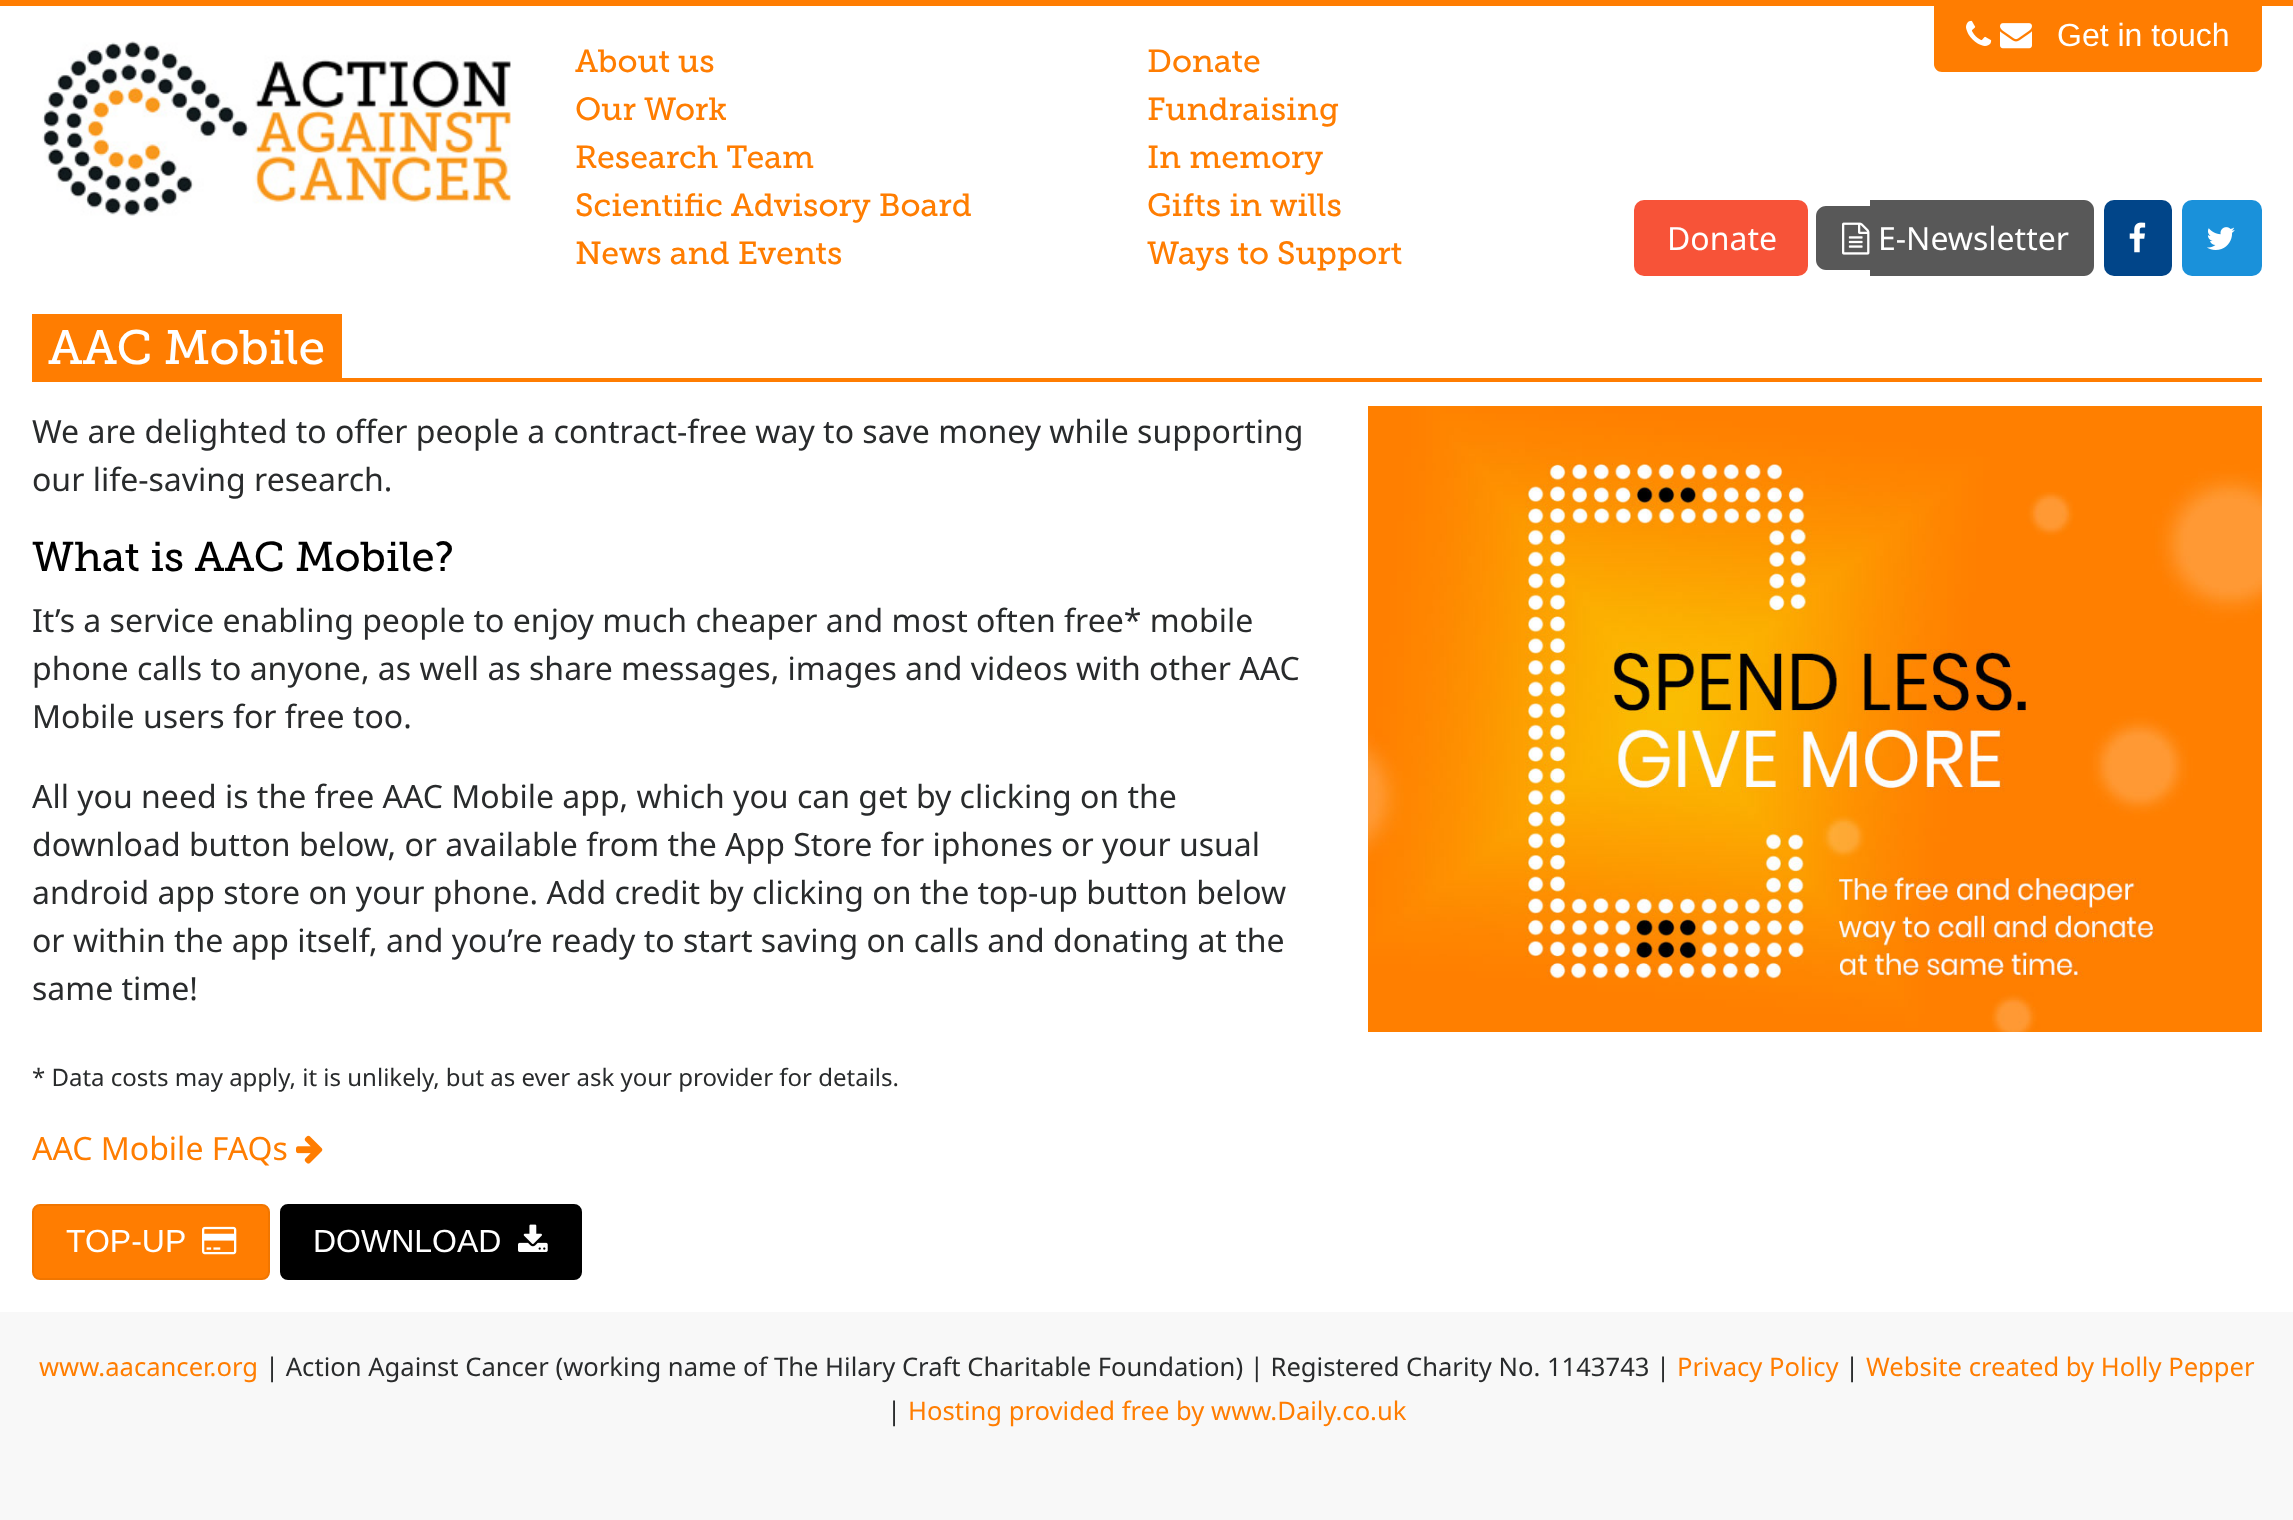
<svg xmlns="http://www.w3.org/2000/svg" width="2293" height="1520">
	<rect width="100%" height="100%" fill="#F8F8F8" />
	<rect x="0" y="0" width="2293" height="6" fill="#FF7D01" />
	<rect x="0" y="6" width="2293" height="1306" fill="#FFFFFF" />
	<path d="M1934 0H2262V64C2262 68.5 2258.5 72 2254 72H1942C1937.5 72 1934 68.5 1934 64Z" fill="#FF7D01" />
	<image x="1966" y="20" width="26" height="26" href="assets/img1.png" />
	<image x="2000" y="23" width="32" height="26" href="assets/img2.png" />
	<text x="2057" y="46" font-family="Liberation Sans" font-size="32" fill="#FFFFFF">Get in touch</text>
	<image x="42" y="41" width="469" height="175" href="assets/img3.png" />
	<g font-family="Museo Slab" font-size="32" fill="#FF7D01">
		<text x="575" y="72">About us</text>
		<text x="575" y="120">Our Work</text>
		<text x="575" y="168">Research Team</text>
		<text x="575" y="216">Scientific Advisory Board</text>
		<text x="575" y="264">News and Events</text>
		<text x="1147" y="72">Donate</text>
		<text x="1147" y="120">Fundraising</text>
		<text x="1147" y="168">In memory</text>
		<text x="1147" y="216">Gifts in wills</text>
		<text x="1147" y="264">Ways to Support</text>
	</g>
	<rect x="1634" y="200" width="174" height="76" rx="10" fill="#F75338" />
	<text x="1667" y="250" font-family="Noto Sans" font-size="32" fill="#FFFFFF">Donate</text>
	<path d="M1826 206H1870V270H1826C1820.5 270 1816 265.5 1816 260V216C1816 210.5 1820.5 206 1826 206Z" fill="#585858" />
	<path d="M1870 200H2084C2089.5 200 2094 204.5 2094 210V266C2094 271.5 2089.5 276 2084 276H1870Z" fill="#585858" />
	<image x="1842" y="222" width="28" height="33" href="assets/img4.png" />
	<text x="1878" y="250" font-family="Noto Sans" font-size="32" fill="#FFFFFF">E-Newsletter</text>
	<rect x="2104" y="200" width="68" height="76" rx="10" fill="#014589" />
	<image x="2129" y="222" width="17" height="31" href="assets/img5.png" />
	<rect x="2182" y="200" width="80" height="76" rx="10" fill="#1A91DA" />
	<image x="2207" y="227" width="28" height="23" href="assets/img6.png" />
	<rect x="342" y="378" width="1920" height="4" fill="#FF7D01" />
	<rect x="32" y="314" width="310" height="68" fill="#FF7D01" />
	<text x="48" y="364" font-family="Museo Slab" font-size="48" fill="#FFFFFF">AAC Mobile</text>
	<g font-family="Noto Sans" font-size="32" fill="#292B2C">
		<text x="32" y="443">We are delighted to offer people a contract-free way to save money while supporting</text>
		<text x="32" y="491">our life-saving research.</text>
	</g>
	<text x="32" y="571" font-family="Museo Slab" font-size="41.6" fill="#000000">What is AAC Mobile?</text>
	<g font-family="Noto Sans" font-size="32" fill="#292B2C">
		<text x="32" y="632">It’s a service enabling people to enjoy much cheaper and most often free* mobile</text>
		<text x="32" y="680">phone calls to anyone, as well as share messages, images and videos with other AAC</text>
		<text x="32" y="728">Mobile users for free too.</text>
		<text x="32" y="808">All you need is the free AAC Mobile app, which you can get by clicking on the</text>
		<text x="32" y="856">download button below, or available from the App Store for iphones or your usual</text>
		<text x="32" y="904">android app store on your phone. Add credit by clicking on the top-up button below</text>
		<text x="32" y="952">or within the app itself, and you’re ready to start saving on calls and donating at the</text>
		<text x="32" y="1000">same time!</text>
	</g>
	<text x="32" y="1086" font-family="Noto Sans" font-size="24" fill="#292B2C">* Data costs may apply, it is unlikely, but as ever ask your provider for details.</text>
	<text x="32" y="1160" font-family="Noto Sans" font-size="32" fill="#FF7D01">AAC Mobile FAQs</text>
	<image x="296" y="1135" width="27" height="29" href="assets/img7.png" />
	<rect x="33" y="1205" width="236" height="74" rx="7" fill="#FF7D01" stroke="#F17600" stroke-width="2" />
	<text x="66" y="1252" font-family="Liberation Sans" font-size="32" fill="#FFFFFF">TOP-UP</text>
	<image x="202" y="1226" width="35" height="29" href="assets/img8.png" />
	<rect x="281" y="1205" width="300" height="74" rx="7" fill="#000000" stroke="#000000" stroke-width="2" />
	<text x="313" y="1252" font-family="Liberation Sans" font-size="32" fill="#FFFFFF">DOWNLOAD</text>
	<image x="518" y="1224" width="30" height="28" href="assets/img9.png" />
	<image x="1368" y="406" width="894" height="626" href="assets/img10.png" />
	<text x="39" y="1376" font-family="Noto Sans" font-size="25.6" fill="#FF7D01">www.aacancer.org</text>
	<text x="265" y="1376" font-family="Noto Sans" font-size="25.6" fill="#292B2C">| Action Against Cancer (working name of The Hilary Craft Charitable Foundation) | Registered Charity No. 1143743 |</text>
	<text x="1677" y="1376" font-family="Noto Sans" font-size="25.6" fill="#FF7D01">Privacy Policy</text>
	<text x="1845" y="1376" font-family="Noto Sans" font-size="25.6" fill="#292B2C">|</text>
	<text x="1866" y="1376" font-family="Noto Sans" font-size="25.6" fill="#FF7D01">Website created by Holly Pepper</text>
	<text x="887" y="1420" font-family="Noto Sans" font-size="25.6" fill="#292B2C">|</text>
	<text x="908" y="1420" font-family="Noto Sans" font-size="25.6" fill="#FF7D01">Hosting provided free by www.Daily.co.uk</text>
</svg>
